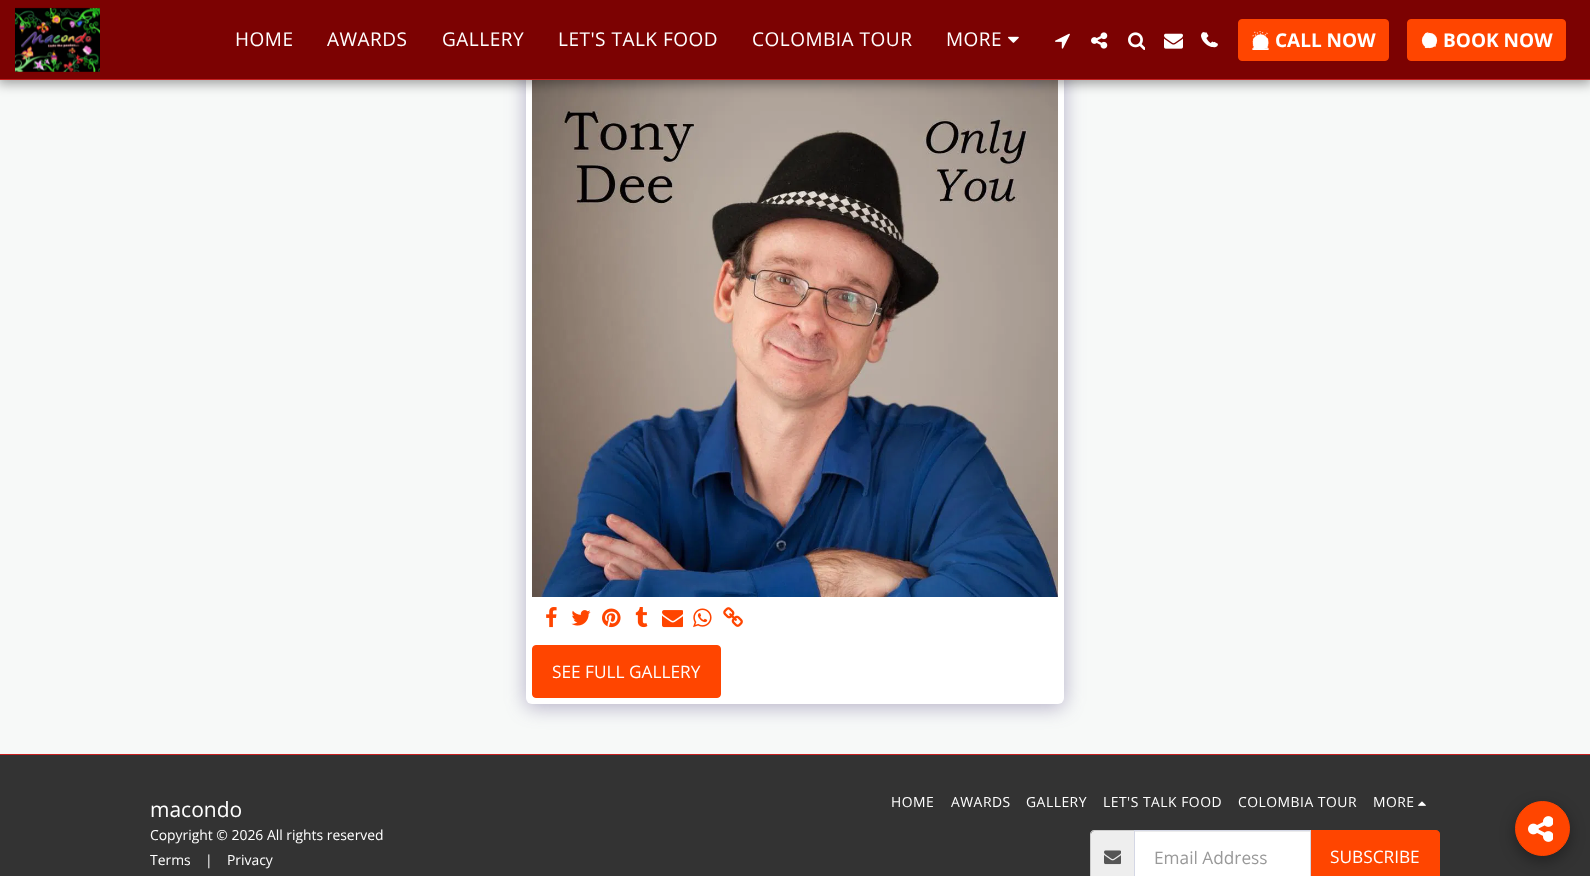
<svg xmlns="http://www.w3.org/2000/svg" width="1590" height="876">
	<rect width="100%" height="100%" fill="#F7F9F8" />
	<rect x="526" y="68" width="538" height="639" rx="6" fill="#4D3F7A" fill-opacity="0.4" filter="blur(10px)" />
	<rect x="526" y="65" width="538" height="639" rx="6" fill="#FFFFFF" />
	<image x="532" y="80" width="526" height="517" href="assets/img11.png" />
	<rect x="-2" y="0" width="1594" height="84" fill="#000000" fill-opacity="0.35" filter="blur(6px)" />
	<rect x="0" y="0" width="1590" height="79" fill="#7C0202" />
	<rect x="0" y="79" width="1590" height="1" fill="#C62020" />
	<image x="15" y="7" width="85" height="65" href="assets/img1.png" />
	<g font-family="Open Sans" font-size="19" letter-spacing="0.5" fill="#FFFFFF">
		<text x="235" y="46">HOME</text>
		<text x="327" y="46">AWARDS</text>
		<text x="442" y="46">GALLERY</text>
		<text x="558" y="46">LET'S TALK FOOD</text>
		<text x="752" y="46">COLOMBIA TOUR</text>
		<text x="946" y="46">MORE</text>
	</g>
	<image x="1008" y="36" width="11" height="7" href="assets/img2.png" />
	<image x="1055" y="33" width="15" height="16" href="assets/img3.png" />
	<image x="1091" y="32" width="17" height="17" href="assets/img4.png" />
	<image x="1128" y="32" width="17" height="18" href="assets/img5.png" />
	<image x="1164" y="33" width="19" height="16" href="assets/img6.png" />
	<image x="1204" y="32" width="14" height="16" href="assets/img7.png" />
	<image x="1201" y="32" width="13" height="15" href="assets/img8.png" />
	<rect x="1238.5" y="19.5" width="150" height="41" rx="3.5" fill="#FF4500" stroke="#FF4500" />
	<image x="1252" y="31" width="17" height="19" href="assets/img9.png" />
	<text x="1275" y="47" font-family="Open Sans" font-size="19" font-weight="700" fill="#FFFFFF">CALL NOW</text>
	<rect x="1407.5" y="19.5" width="158" height="41" rx="3.5" fill="#FF4500" stroke="#FF4500" />
	<image x="1421" y="32" width="17" height="17" href="assets/img10.png" />
	<text x="1443" y="47" font-family="Open Sans" font-size="19" font-weight="700" fill="#FFFFFF">BOOK NOW</text>
	<image x="546" y="607" width="11" height="21" href="assets/img12.png" />
	<image x="571" y="610" width="20" height="16" href="assets/img13.png" />
	<image x="602" y="608" width="19" height="20" href="assets/img14.png" />
	<image x="635" y="607" width="13" height="21" href="assets/img15.png" />
	<image x="662" y="610" width="21" height="18" href="assets/img16.png" />
	<image x="693" y="608" width="19" height="20" href="assets/img17.png" />
	<image x="723" y="607" width="20" height="20" href="assets/img18.png" />
	<rect x="532.5" y="645.5" width="188" height="52" rx="3.5" fill="#FF4500" stroke="#FF4500" />
	<text x="552" y="678" font-family="Open Sans" font-size="17.25" fill="#FFFFFF">SEE FULL GALLERY</text>
	<rect x="0" y="755" width="1590" height="121" fill="#333333" />
	<rect x="0" y="754" width="1590" height="1" fill="#C62020" />
	<text x="150" y="817" font-family="Open Sans" font-size="21" fill="#FFFFFF">macondo</text>
	<g font-family="Open Sans" font-size="13.9" fill="#FFFFFF">
		<text x="150" y="840">Copyright © 2026 All rights reserved</text>
		<text x="150" y="865">Terms</text>
		<text x="205" y="865">|</text>
		<text x="227" y="865">Privacy</text>
	</g>
	<g font-family="Open Sans" font-size="13.9" letter-spacing="0.5" fill="#FFFFFF">
		<text x="891" y="807">HOME</text>
		<text x="951" y="807">AWARDS</text>
		<text x="1026" y="807">GALLERY</text>
		<text x="1103" y="807">LET'S TALK FOOD</text>
		<text x="1238" y="807">COLOMBIA TOUR</text>
		<text x="1373" y="807">MORE</text>
	</g>
	<image x="1418" y="801" width="8" height="5" href="assets/img19.png" />
	<path d="M1094 831H1134V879H1094C1092.5 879 1091 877.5 1091 876V834C1091 832.5 1092.5 831 1094 831Z" fill="#EEEEEE" />
	<path d="M1094 830H1134V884H1094C1092 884 1090 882 1090 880V834C1090 832 1092 830 1094 830ZM1094 831H1134V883C1129 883 1094 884 1092 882L1091 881V833L1092 832Z" fill="#CCCCCC" fill-rule="evenodd" />
	<image x="1104" y="850" width="17" height="15" href="assets/img20.png" />
	<rect x="1135" y="832" width="175" height="44" fill="#FFFFFF" />
	<rect x="1135" y="831" width="175" height="1" fill="#ECECEC" />
	<path d="M1310.5 830.5H1436C1438 830.5 1439.5 832 1439.5 834V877C1439.5 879 1438 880.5 1436 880.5H1310.5Z" fill="#FF4500" stroke="#FF4500" />
	<rect x="1134.5" y="830.5" width="176" height="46" fill="none" stroke="#D4D7E5" />
	<text x="1154" y="864" font-family="Open Sans" font-size="17.25" fill="#999999">Email Address</text>
	<text x="1330" y="863" font-family="Open Sans" font-size="17.25" fill="#FFFFFF">SUBSCRIBE</text>
	<rect x="1515" y="806" width="55" height="55" rx="27.5" fill="#000000" fill-opacity="0.35" filter="blur(7.5px)" />
	<circle cx="1542.5" cy="828.5" r="27" fill="#FF4500" stroke="#FF4500" />
	<image x="1528" y="816" width="25" height="26" href="assets/img21.png" />
</svg>
